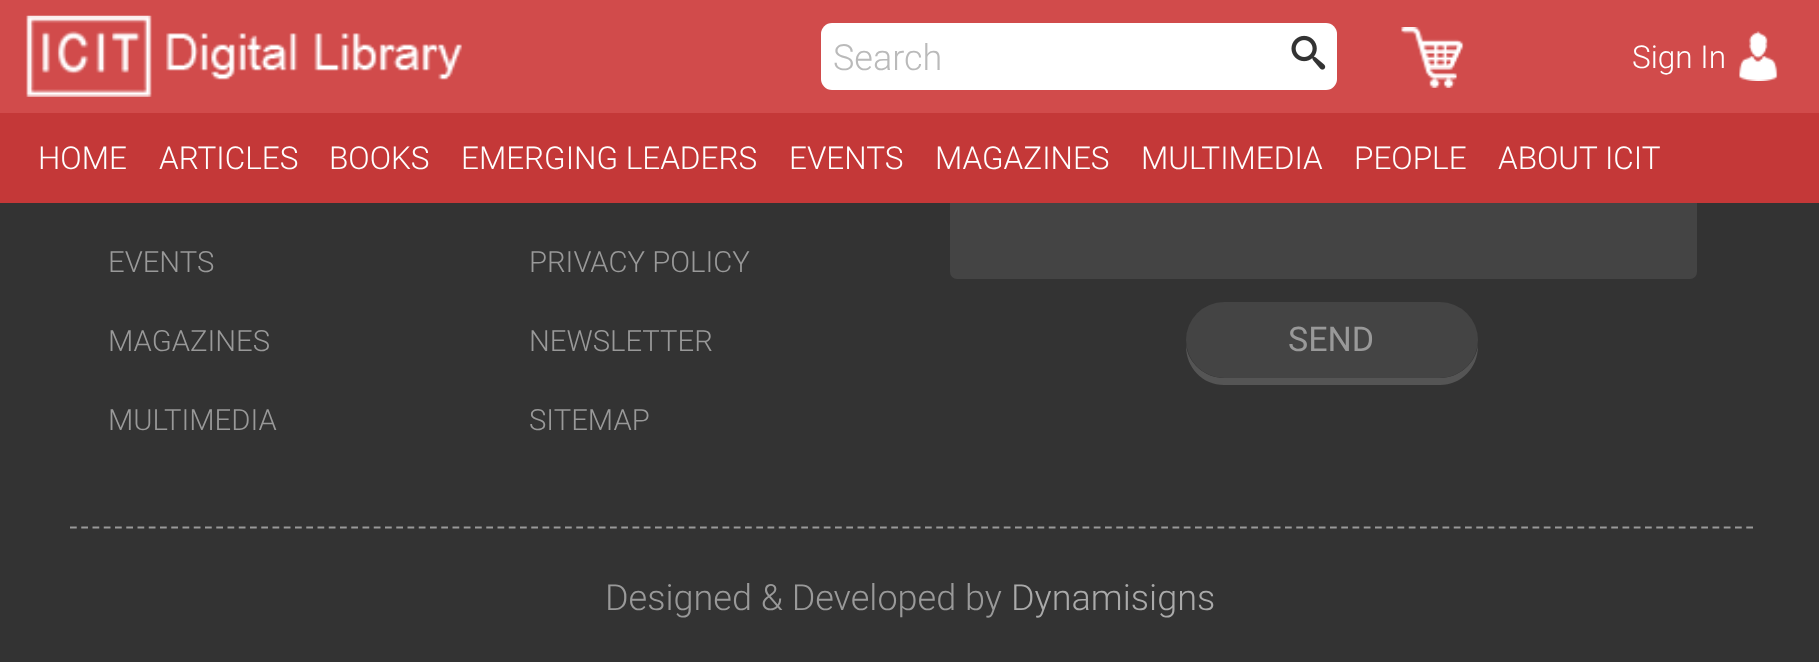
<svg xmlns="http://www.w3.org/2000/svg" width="1819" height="662">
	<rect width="100%" height="100%" fill="#333333" />
	<rect x="0" y="0" width="1819" height="113" fill="#D14B4B" />
	<image x="26" y="15" width="436" height="82" href="assets/img1.png" />
	<rect x="821" y="23" width="516" height="67" rx="11" fill="#FFFFFF" />
	<text x="833" y="70" font-family="Roboto" font-size="36" font-weight="300" fill="#BABABA">Search</text>
	<image x="1291" y="35" width="35" height="35" href="assets/img2.png" />
	<image x="1401" y="27" width="63" height="61" href="assets/img3.png" />
	<image x="1739" y="31" width="39" height="50" href="assets/img4.png" />
	<text x="1632" y="68" font-family="Roboto" font-size="31.5" font-weight="300" fill="#FFFFFF">Sign In</text>
	<rect x="950" y="167" width="747" height="112" rx="7" fill="#444444" />
	<rect x="0" y="113" width="1819" height="90" fill="#C43838" />
	<g font-family="Roboto" font-size="31.5" font-weight="300" fill="#FFFFFF">
		<text x="38" y="169">HOME</text>
		<text x="159" y="169">ARTICLES</text>
		<text x="329" y="169">BOOKS</text>
		<text x="461" y="169">EMERGING LEADERS</text>
		<text x="789" y="169">EVENTS</text>
		<text x="935" y="169">MAGAZINES</text>
		<text x="1141" y="169">MULTIMEDIA</text>
		<text x="1354" y="169">PEOPLE</text>
		<text x="1498" y="169">ABOUT ICIT</text>
	</g>
	<g font-family="Roboto" font-size="29.25" font-weight="300" fill="#999999">
		<text x="108" y="272">EVENTS</text>
		<text x="108" y="351">MAGAZINES</text>
		<text x="108" y="430">MULTIMEDIA</text>
		<text x="529" y="272">PRIVACY POLICY</text>
		<text x="529" y="351">NEWSLETTER</text>
		<text x="529" y="430">SITEMAP</text>
	</g>
	<path d="M1186 345V346C1186 368 1203 385 1224 385H1440C1461 385 1478 368 1478 346V345C1476 363 1459 378 1440 378H1224C1205 378 1188 363 1186 345Z" fill="#555555" />
	<rect x="1186" y="302" width="292" height="76" rx="38" fill="#444444" />
	<text x="1288" y="351" font-family="Roboto" font-size="34" fill="#999999">SEND</text>
	<path d="M70 527.5H1753" fill="none" stroke="#999999" stroke-width="2.2" stroke-dasharray="6.75 4.5" />
	<text x="605" y="610" font-family="Roboto" font-size="36" font-weight="300" fill="#999999">Designed &amp; Developed by</text>
	<text x="1011" y="610" font-family="Roboto" font-size="36" font-weight="300" fill="#AAAAAA">Dynamisigns</text>
</svg>
